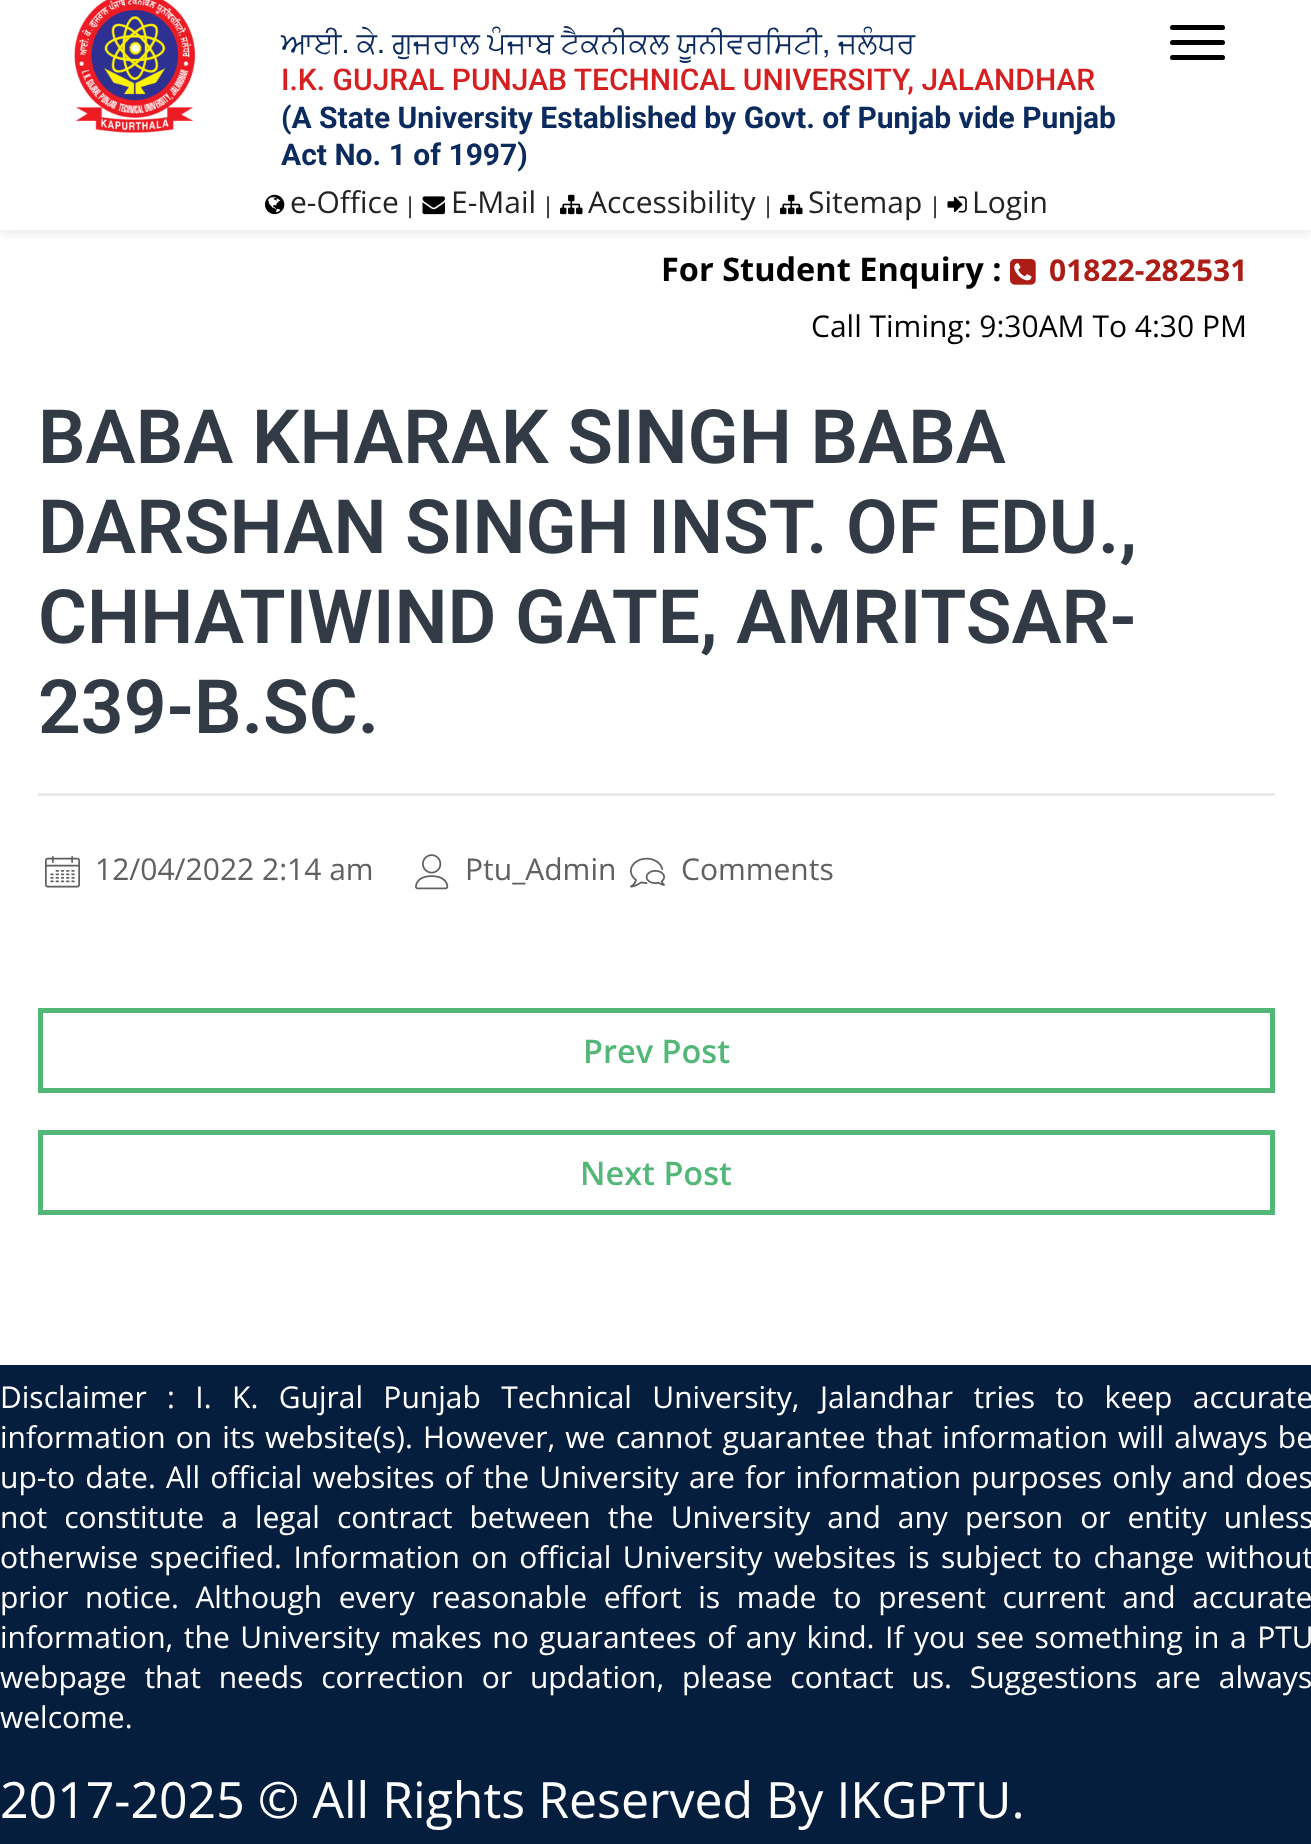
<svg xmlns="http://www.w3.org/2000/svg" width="1311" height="1844">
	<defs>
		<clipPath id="clip1"><rect x="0" y="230" width="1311" height="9" /></clipPath>
	</defs>
	<rect width="100%" height="100%" fill="#FFFFFF" />
	<g clip-path="url(#clip1)">
		<rect x="0" y="-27" width="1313" height="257" fill="#000000" fill-opacity="0.12" filter="blur(9px)" />
	</g>
	<image x="74" y="0" width="122" height="133" href="assets/img1.png" />
	<text x="281" y="53" font-family="FreeSans" font-size="30" fill="#0B2A5E">ਆਈ. ਕੇ. ਗੁਜਰਾਲ ਪੰਜਾਬ ਟੈਕਨੀਕਲ ਯੂਨੀਵਰਸਿਟੀ, ਜਲੰਧਰ</text>
	<text x="281" y="90" font-family="Roboto" font-size="30" font-weight="500" fill="#D42020">I.K. GUJRAL PUNJAB TECHNICAL UNIVERSITY, JALANDHAR</text>
	<g font-family="Roboto" font-size="30" font-weight="700" fill="#0B2A5E">
		<text x="281" y="128">(A State University Established by Govt. of Punjab vide Punjab</text>
		<text x="281" y="165">Act No. 1 of 1997)</text>
	</g>
	<rect x="1170" y="25" width="55" height="5" rx="2.5" fill="#000000" />
	<rect x="1170" y="40" width="55" height="5" rx="2.5" fill="#000000" />
	<rect x="1170" y="55" width="55" height="5" rx="2.5" fill="#000000" />
	<image x="265" y="194" width="20" height="21" href="assets/img2.png" />
	<text x="290" y="213" font-family="Open Sans" font-size="30" fill="#222222">e-Office</text>
	<text x="404" y="213" font-family="Open Sans" font-size="22" fill="#000000">|</text>
	<image x="422" y="196" width="23" height="19" href="assets/img3.png" />
	<text x="451" y="213" font-family="Open Sans" font-size="30" fill="#222222">E-Mail</text>
	<text x="542" y="213" font-family="Open Sans" font-size="22" fill="#000000">|</text>
	<image x="560" y="194" width="23" height="21" href="assets/img4.png" />
	<text x="588" y="213" font-family="Open Sans" font-size="30" fill="#222222">Accessibility</text>
	<text x="762" y="213" font-family="Open Sans" font-size="22" fill="#000000">|</text>
	<image x="780" y="194" width="23" height="21" href="assets/img4.png" />
	<text x="808" y="213" font-family="Open Sans" font-size="30" fill="#222222">Sitemap</text>
	<text x="929" y="213" font-family="Open Sans" font-size="22" fill="#000000">|</text>
	<image x="947" y="196" width="20" height="17" href="assets/img5.png" />
	<text x="972" y="213" font-family="Open Sans" font-size="30" fill="#222222">Login</text>
	<text x="661" y="281" font-family="Open Sans" font-size="32.5" font-weight="700" fill="#000000">For Student Enquiry :</text>
	<image x="1010" y="258" width="26" height="27" href="assets/img6.png" />
	<text x="1049" y="281" font-family="Open Sans" font-size="30" font-weight="700" fill="#AC1D16">01822-282531</text>
	<text x="811" y="337" font-family="Open Sans" font-size="30" fill="#000000">Call Timing: 9:30AM To 4:30 PM</text>
	<rect x="38" y="793" width="1237" height="3" fill="#E9E9E9" />
	<g font-family="Roboto" font-size="75" font-weight="600" fill="#323A45">
		<text x="38" y="463">BABA KHARAK SINGH BABA</text>
		<text x="38" y="553">DARSHAN SINGH INST. OF EDU.,</text>
		<text x="38" y="643">CHHATIWIND GATE, AMRITSAR-</text>
		<text x="38" y="733">239-B.SC.</text>
	</g>
	<image x="45" y="856" width="35" height="32" href="assets/img7.png" />
	<text x="95" y="880" font-family="Open Sans" font-size="30" fill="#606060">12/04/2022 2:14 am</text>
	<image x="415" y="854" width="34" height="36" href="assets/img8.png" />
	<text x="465" y="880" font-family="Open Sans" font-size="30" fill="#606060">Ptu_Admin</text>
	<image x="630" y="857" width="35" height="31" href="assets/img9.png" />
	<text x="681" y="880" font-family="Open Sans" font-size="30" fill="#606060">Comments</text>
	<rect x="40.5" y="1010.5" width="1232" height="80" fill="none" stroke="#53B778" stroke-width="5" />
	<text x="583" y="1063" font-family="Open Sans" font-size="32.5" font-weight="600" fill="#53B778">Prev Post</text>
	<rect x="40.5" y="1132.5" width="1232" height="80" fill="none" stroke="#53B778" stroke-width="5" />
	<text x="580" y="1185" font-family="Open Sans" font-size="32.5" font-weight="600" fill="#53B778">Next Post</text>
	<rect x="0" y="1365" width="1311" height="479" fill="#061E3E" />
	<g font-family="Open Sans" font-size="30" fill="#FFFFFF">
		<text x="0" y="1408" word-spacing="12.6">Disclaimer : I. K. Gujral Punjab Technical University, Jalandhar tries to keep accurate</text>
		<text x="0" y="1448" word-spacing="2.4">information on its website(s). However, we cannot guarantee that information will always be</text>
		<text x="0" y="1488" word-spacing="2.4">up-to date. All official websites of the University are for information purposes only and does</text>
		<text x="0" y="1528" word-spacing="9.25">not constitute a legal contract between the University and any person or entity unless</text>
		<text x="0" y="1568" word-spacing="3.75">otherwise specified. Information on official University websites is subject to change without</text>
		<text x="0" y="1608" word-spacing="8.75">prior notice. Although every reasonable effort is made to present current and accurate</text>
		<text x="0" y="1648" word-spacing="2.75">information, the University makes no guarantees of any kind. If you see something in a PTU</text>
		<text x="0" y="1688" word-spacing="10">webpage that needs correction or updation, please contact us. Suggestions are always</text>
		<text x="0" y="1728">welcome.</text>
	</g>
	<text x="0" y="1818" font-family="Open Sans" font-size="50" fill="#FFFFFF">2017-2025 © All Rights Reserved By IKGPTU.</text>
</svg>
